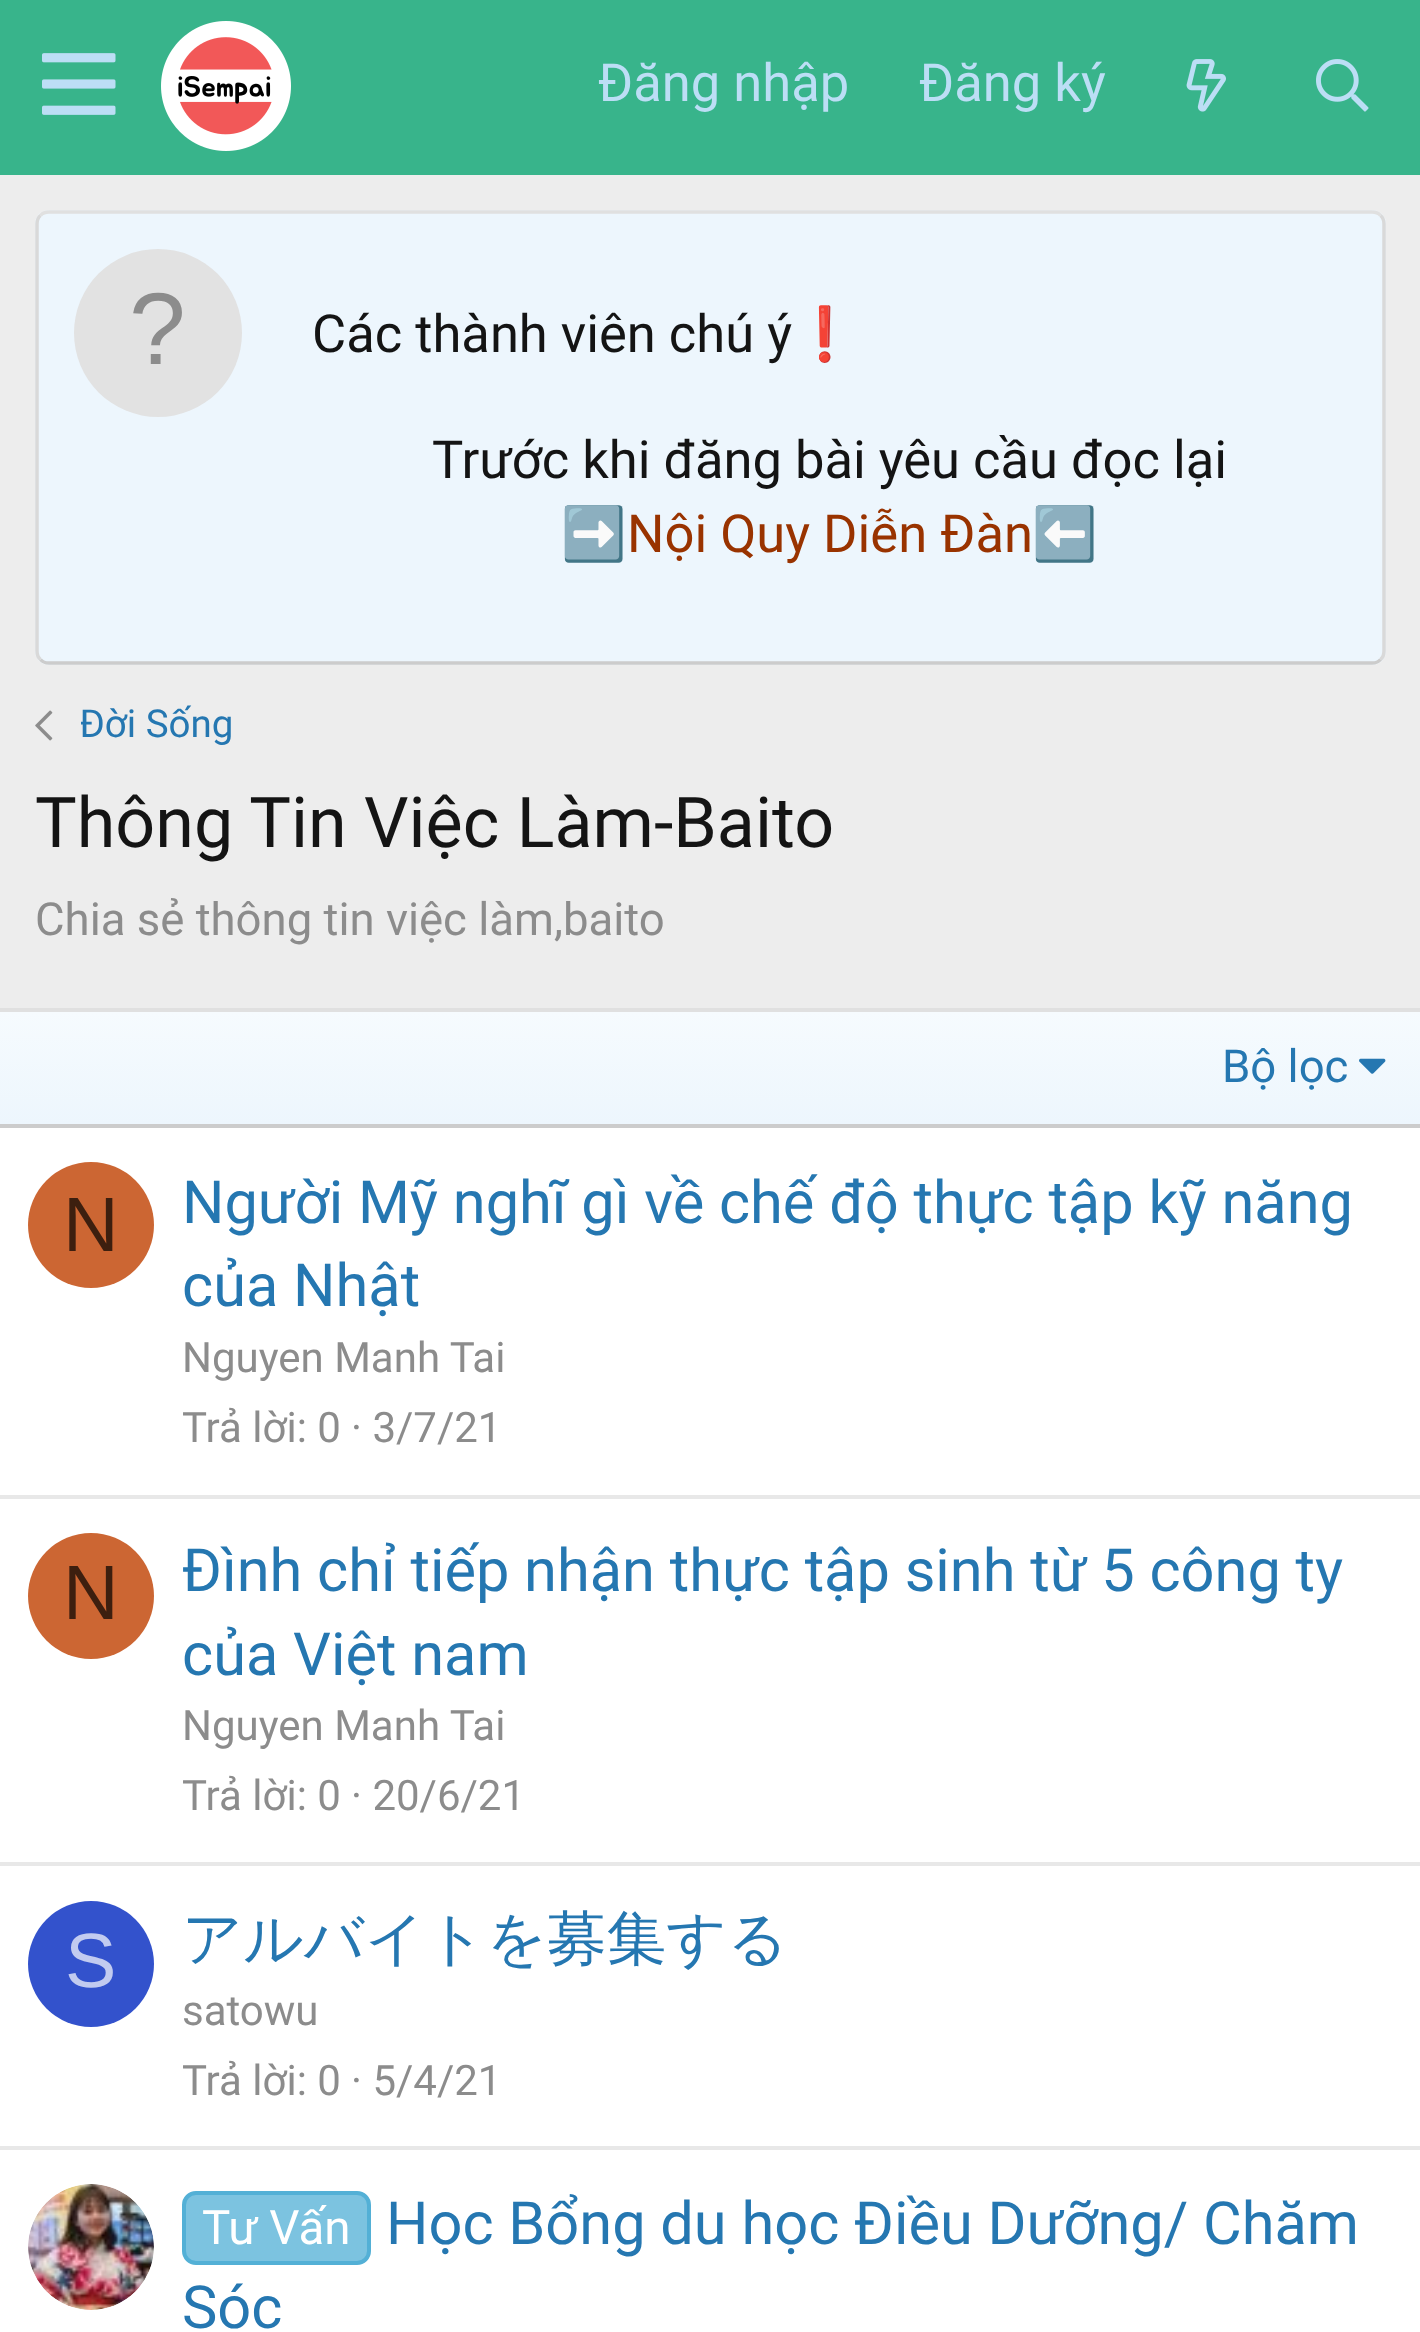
<svg xmlns="http://www.w3.org/2000/svg" width="1420" height="2332">
	<defs>
		<clipPath id="clip1"><rect x="81" y="700" width="154" height="56" /></clipPath>
		<linearGradient id="g1" gradientUnits="userSpaceOnUse" x1="711" y1="1124" x2="711" y2="1012"><stop offset="0" stop-color="#EDF6FD" /><stop offset="1" stop-color="#F6FBFE" /></linearGradient>
	</defs>
	<rect width="100%" height="100%" fill="#EDEDED" />
	<rect x="0" y="0" width="1420" height="175" fill="#38B48B" />
	<image x="42" y="53" width="74" height="62" href="assets/img1.png" />
	<image x="161" y="21" width="130" height="130" href="assets/img2.png" />
	<g font-family="Roboto" font-size="52.5" fill="#BCDEF5">
		<text x="598" y="101">Đăng nhập</text>
		<text x="919" y="101">Đăng ký</text>
	</g>
	<image x="1186" y="59" width="40" height="53" href="assets/img3.png" />
	<image x="1316" y="59" width="53" height="53" href="assets/img4.png" />
	<rect x="35" y="210" width="1351" height="455" rx="14" fill="#EDF6FD" />
	<path d="M40.5 215.5C42.5 213 46 212 49 212H1372C1375 212 1378.5 213 1380.5 215.5" fill="none" stroke="#E0E0E0" stroke-width="3.5" />
	<path d="M1380.5 215.5C1383 217.5 1384 221 1384 224V651C1384 654 1383 657.5 1380.5 659.5" fill="none" stroke="#D9D9D9" stroke-width="3.5" />
	<path d="M1380.5 659.5C1378.5 662 1375 663 1372 663H49C46 663 42.5 662 40.5 659.5" fill="none" stroke="#CCCCCC" stroke-width="3.5" />
	<path d="M40.5 659.5C38 657.5 37 654 37 651V224C37 221 38 217.5 40.5 215.5" fill="none" stroke="#D9D9D9" stroke-width="3.5" />
	<circle cx="158" cy="333" r="84" fill="#E2E2E2" />
	<text x="129" y="364" font-family="Liberation Sans" font-size="102" fill="#8C8C8C">?</text>
	<text x="312" y="352" font-family="Roboto" font-size="52.5" fill="#141414">Các thành viên chú ý</text>
	<text x="792" y="352" font-family="Noto Color Emoji" font-size="52.5" fill="#141414">❗️</text>
	<text x="432" y="478" font-family="Roboto" font-size="52.5" fill="#141414">Trước khi đăng bài yêu cầu đọc lại</text>
	<text x="561" y="552" font-family="Noto Color Emoji" font-size="52.5" fill="#993300">➡️</text>
	<text x="627" y="552" font-family="Roboto" font-size="52.5" fill="#993300">Nội Quy Diễn Đàn</text>
	<text x="1032" y="552" font-family="Noto Color Emoji" font-size="52.5" fill="#993300">⬅️</text>
	<image x="35" y="710" width="18" height="31" href="assets/img5.png" />
	<g clip-path="url(#clip1)">
		<text x="79" y="737" font-family="Roboto" font-size="38.5" fill="#2577B1">Đời Sống</text>
	</g>
	<text x="35" y="847" font-family="Roboto" font-size="70" fill="#141414">Thông Tin Việc Làm-Baito</text>
	<text x="35" y="935" font-family="Roboto" font-size="45.5" fill="#8C8C8C">Chia sẻ thông tin việc làm,baito</text>
	<rect x="0" y="1128" width="1420" height="1204" fill="#FFFFFF" />
	<rect x="0" y="1008" width="1420" height="4" fill="#E0E0E0" />
	<rect x="0" y="1012" width="1420" height="112" fill="url(#g1)" />
	<rect x="0" y="1124" width="1420" height="4" fill="#CCCCCC" />
	<text x="1222" y="1082" font-family="Roboto" font-size="45.5" fill="#2577B1">Bộ lọc</text>
	<image x="1359" y="1058" width="27" height="16" href="assets/img6.png" />
	<circle cx="91" cy="1225" r="63" fill="#CC6633" />
	<text x="63" y="1251" font-family="Liberation Sans" font-size="77" fill="#3D1F0F">N</text>
	<g font-family="Roboto" font-size="59.5" fill="#2577B1">
		<text x="182" y="1223">Người Mỹ nghĩ gì về chế độ thực tập kỹ năng</text>
		<text x="182" y="1306">của Nhật</text>
	</g>
	<g font-family="Roboto" font-size="42" fill="#8C8C8C">
		<text x="182" y="1372">Nguyen Manh Tai</text>
		<text x="182" y="1442">Trả lời: 0</text>
		<text x="351" y="1442">· 3/7/21</text>
	</g>
	<rect x="0" y="1495" width="1420" height="4" fill="#E8E8E8" />
	<circle cx="91" cy="1596" r="63" fill="#CC6633" />
	<text x="63" y="1619" font-family="Liberation Sans" font-size="77" fill="#3D1F0F">N</text>
	<g font-family="Roboto" font-size="59.5" fill="#2577B1">
		<text x="182" y="1591">Đình chỉ tiếp nhận thực tập sinh từ 5 công ty</text>
		<text x="182" y="1675">của Việt nam</text>
	</g>
	<g font-family="Roboto" font-size="42" fill="#8C8C8C">
		<text x="182" y="1740">Nguyen Manh Tai</text>
		<text x="182" y="1810">Trả lời: 0</text>
		<text x="351" y="1810">· 20/6/21</text>
	</g>
	<rect x="0" y="1862" width="1420" height="4" fill="#E8E8E8" />
	<circle cx="91" cy="1964" r="63" fill="#3352CC" />
	<text x="65" y="1987" font-family="Liberation Sans" font-size="77" fill="#C2CBF0">S</text>
	<text x="182" y="1959" font-family="WenQuanYi Zen Hei" font-size="59.5" font-weight="500" fill="#2577B1">アルバイトを募集する</text>
	<g font-family="Roboto" font-size="42" fill="#8C8C8C">
		<text x="182" y="2025">satowu</text>
		<text x="182" y="2095">Trả lời: 0</text>
		<text x="351" y="2095">· 5/4/21</text>
	</g>
	<rect x="0" y="2146" width="1420" height="4" fill="#E8E8E8" />
	<image x="28" y="2184" width="126" height="126" href="assets/img7.png" />
	<rect x="184" y="2193" width="185" height="70" rx="12" fill="#7CC3E0" stroke="#53B0D6" stroke-width="4" />
	<text x="202" y="2244" font-family="Roboto" font-size="47.5" fill="#FFFFFF">Tư Vấn</text>
	<g font-family="Roboto" font-size="59.5" fill="#2577B1">
		<text x="386" y="2244">Học Bổng du học Điều Dưỡng/ Chăm</text>
		<text x="182" y="2328">Sóc</text>
	</g>
</svg>
